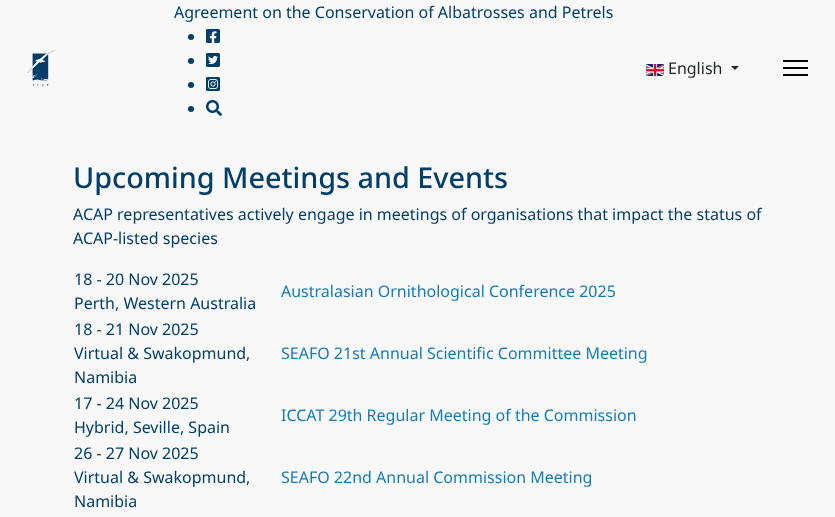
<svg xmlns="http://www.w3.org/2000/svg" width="835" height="517">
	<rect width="100%" height="100%" fill="#F8F8F8" />
	<image x="27" y="50" width="28" height="36" href="assets/img1.png" />
	<text x="174" y="18" font-family="Noto Sans" font-size="16" fill="#013E69">Agreement on the Conservation of Albatrosses and Petrels</text>
	<circle cx="191" cy="37" r="3" fill="#013E69" />
	<image x="206" y="29" width="14" height="14" href="assets/img2.png" />
	<circle cx="191" cy="61" r="3" fill="#013E69" />
	<image x="206" y="53" width="14" height="14" href="assets/img3.png" />
	<circle cx="191" cy="85" r="3" fill="#013E69" />
	<image x="206" y="77" width="14" height="14" href="assets/img4.png" />
	<circle cx="191" cy="109" r="3" fill="#013E69" />
	<image x="206" y="100" width="16" height="16" href="assets/img5.png" />
	<image x="646" y="64" width="18" height="12" href="assets/img6.png" />
	<text x="668" y="74" font-family="Noto Sans" font-size="16" fill="#212529">English</text>
	<path d="M731 66H739L735 70Z" fill="#212529" />
	<rect x="783" y="60" width="25" height="2" fill="#000000" />
	<rect x="783" y="67" width="25" height="2" fill="#000000" />
	<rect x="783" y="74" width="25" height="2" fill="#000000" />
	<text x="73" y="188" font-family="Noto Sans" font-size="28.75" font-weight="500" fill="#013E69">Upcoming Meetings and Events</text>
	<g font-family="Noto Sans" font-size="16" fill="#013E69">
		<text x="73" y="220">ACAP representatives actively engage in meetings of organisations that impact the status of</text>
		<text x="73" y="244">ACAP-listed species</text>
		<text x="74" y="285">18 - 20 Nov 2025</text>
		<text x="74" y="309">Perth, Western Australia</text>
	</g>
	<text x="281" y="297" font-family="Noto Sans" font-size="16" fill="#167CB7">Australasian Ornithological Conference 2025</text>
	<g font-family="Noto Sans" font-size="16" fill="#013E69">
		<text x="74" y="335">18 - 21 Nov 2025</text>
		<text x="74" y="359">Virtual &amp; Swakopmund,</text>
		<text x="74" y="383">Namibia</text>
	</g>
	<text x="281" y="359" font-family="Noto Sans" font-size="16" fill="#167CB7">SEAFO 21st Annual Scientific Committee Meeting</text>
	<g font-family="Noto Sans" font-size="16" fill="#013E69">
		<text x="74" y="409">17 - 24 Nov 2025</text>
		<text x="74" y="433">Hybrid, Seville, Spain</text>
	</g>
	<text x="281" y="421" font-family="Noto Sans" font-size="16" fill="#167CB7">ICCAT 29th Regular Meeting of the Commission</text>
	<g font-family="Noto Sans" font-size="16" fill="#013E69">
		<text x="74" y="459">26 - 27 Nov 2025</text>
		<text x="74" y="483">Virtual &amp; Swakopmund,</text>
		<text x="74" y="507">Namibia</text>
	</g>
	<text x="281" y="483" font-family="Noto Sans" font-size="16" fill="#167CB7">SEAFO 22nd Annual Commission Meeting</text>
</svg>
